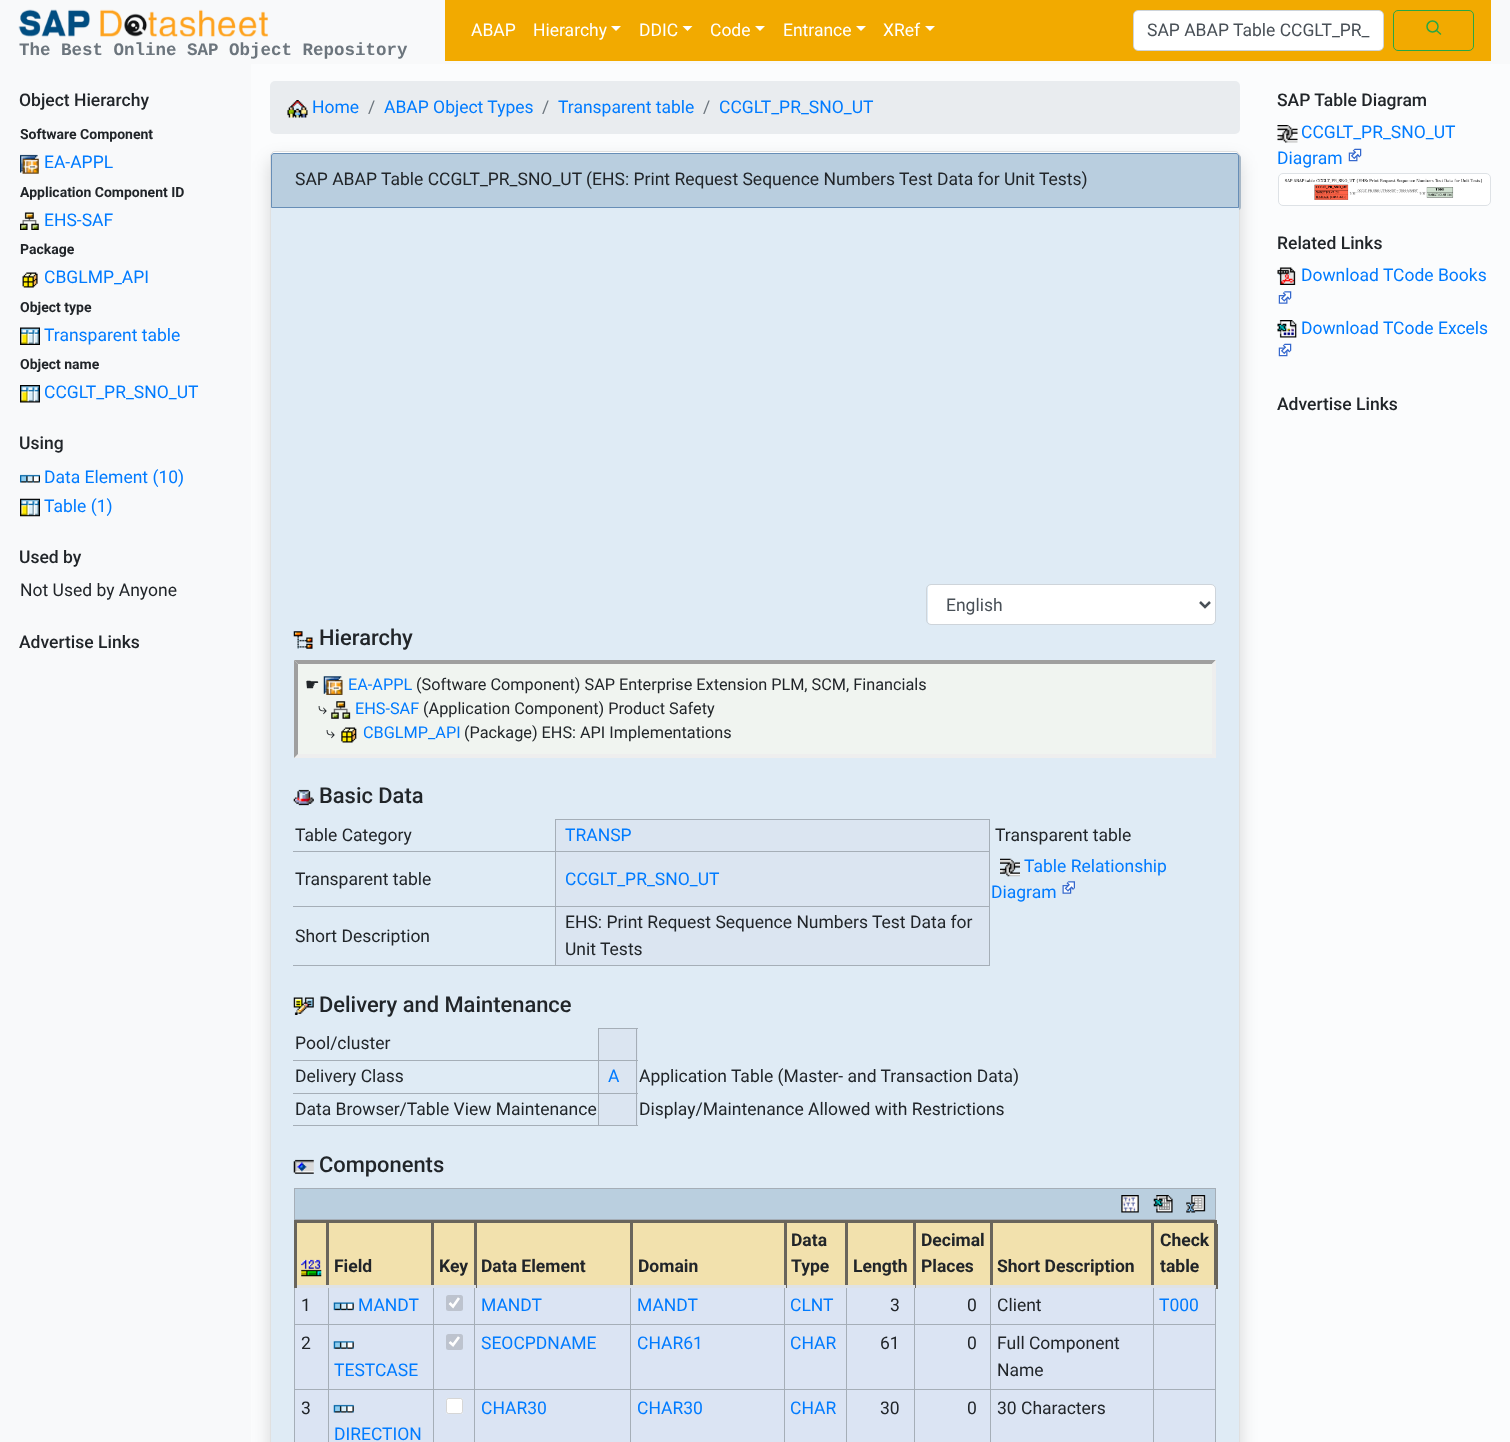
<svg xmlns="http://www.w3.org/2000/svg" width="1510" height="1442">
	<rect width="100%" height="100%" fill="#FBFCFD" />
	<rect x="0" y="0" width="1510" height="64" fill="#F8F9FA" />
	<rect x="445" y="0" width="1046" height="61" fill="#F2AA00" />
	<g font-family="Roboto" font-size="17.5" fill="#FFFFFF">
		<text x="471" y="36">ABAP</text>
		<text x="533" y="36">Hierarchy</text>
	</g>
	<path d="M611 26H621L616 31Z" fill="#FFFFFF" />
	<text x="639" y="36" font-family="Roboto" font-size="17.5" fill="#FFFFFF">DDIC</text>
	<path d="M682.5 26H692.5L687.5 31Z" fill="#FFFFFF" />
	<text x="710" y="36" font-family="Roboto" font-size="17.5" fill="#FFFFFF">Code</text>
	<path d="M755 26H765L760 31Z" fill="#FFFFFF" />
	<text x="783" y="36" font-family="Roboto" font-size="17.5" fill="#FFFFFF">Entrance</text>
	<path d="M856 26H866L861 31Z" fill="#FFFFFF" />
	<text x="883" y="36" font-family="Roboto" font-size="17.5" fill="#FFFFFF">XRef</text>
	<path d="M925 26H935L930 31Z" fill="#FFFFFF" />
	<rect x="1134" y="11" width="249" height="39" rx="3" fill="#FFFFFF" />
	<rect x="1133.5" y="10.5" width="250" height="40" rx="4.5" fill="none" stroke="#CED4DA" />
	<text x="1147" y="36" font-family="Roboto" font-size="17.5" fill="#495057">SAP ABAP Table CCGLT_PR_</text>
	<rect x="1393.5" y="10.5" width="80" height="40" rx="4.5" fill="none" stroke="#28A745" />
	<circle cx="1432.5" cy="26.5" r="5.5" fill="none" stroke="#28A745" stroke-width="1.5" />
	<path d="M1440.5 34L1436.5 30.5" fill="none" stroke="#28A745" stroke-width="1.5" stroke-linecap="round" stroke-linejoin="round" />
	<image x="18" y="9" width="251" height="28" href="assets/img1.png" />
	<text x="19" y="55" font-family="Liberation Mono" font-size="17.5" font-weight="700" fill="#6C757D">The Best Online SAP Object Repository</text>
	<rect x="0" y="64" width="251" height="1378" fill="#F8F9FA" />
	<text x="19" y="106" font-family="Roboto" font-size="17.5" font-weight="500" fill="#212529">Object Hierarchy</text>
	<text x="20" y="139" font-family="Roboto" font-size="14" font-weight="700" fill="#212529">Software Component</text>
	<image x="20" y="154" width="19" height="20" href="assets/img2.png" />
	<text x="44" y="168" font-family="Roboto" font-size="17.5" fill="#007BFF">EA-APPL</text>
	<text x="20" y="197" font-family="Roboto" font-size="14" font-weight="700" fill="#212529">Application Component ID</text>
	<image x="20" y="212" width="19" height="18" href="assets/img3.png" />
	<text x="44" y="226" font-family="Roboto" font-size="17.5" fill="#007BFF">EHS-SAF</text>
	<text x="20" y="254" font-family="Roboto" font-size="14" font-weight="700" fill="#212529">Package</text>
	<image x="22" y="272" width="16" height="16" href="assets/img4.png" />
	<text x="44" y="283" font-family="Roboto" font-size="17.5" fill="#007BFF">CBGLMP_API</text>
	<text x="20" y="312" font-family="Roboto" font-size="14" font-weight="700" fill="#212529">Object type</text>
	<image x="20" y="327" width="20" height="18" href="assets/img5.png" />
	<text x="44" y="341" font-family="Roboto" font-size="17.5" fill="#007BFF">Transparent table</text>
	<text x="20" y="369" font-family="Roboto" font-size="14" font-weight="700" fill="#212529">Object name</text>
	<image x="20" y="385" width="20" height="18" href="assets/img6.png" />
	<text x="44" y="398" font-family="Roboto" font-size="17.5" fill="#007BFF">CCGLT_PR_SNO_UT</text>
	<text x="19" y="449" font-family="Roboto" font-size="17.5" font-weight="500" fill="#212529">Using</text>
	<image x="20" y="474" width="20" height="9" href="assets/img7.png" />
	<text x="44" y="483" font-family="Roboto" font-size="17.5" fill="#007BFF">Data Element (10)</text>
	<image x="20" y="498" width="20" height="19" href="assets/img8.png" />
	<text x="44" y="512" font-family="Roboto" font-size="17.5" fill="#007BFF">Table (1)</text>
	<text x="19" y="563" font-family="Roboto" font-size="17.5" font-weight="500" fill="#212529">Used by</text>
	<text x="20" y="596" font-family="Roboto" font-size="17.5" fill="#212529">Not Used by Anyone</text>
	<text x="19" y="648" font-family="Roboto" font-size="17.5" font-weight="500" fill="#212529">Advertise Links</text>
	<rect x="270" y="81" width="970" height="53" rx="5" fill="#E9ECEF" />
	<image x="287" y="100" width="21" height="18" href="assets/img9.png" />
	<text x="312" y="113" font-family="Roboto" font-size="17.5" fill="#007BFF">Home</text>
	<text x="368" y="113" font-family="Roboto" font-size="17.5" fill="#6C757D">/</text>
	<text x="384" y="113" font-family="Roboto" font-size="17.5" fill="#007BFF">ABAP Object Types</text>
	<text x="542" y="113" font-family="Roboto" font-size="17.5" fill="#6C757D">/</text>
	<text x="558" y="113" font-family="Roboto" font-size="17.5" fill="#007BFF">Transparent table</text>
	<text x="703" y="113" font-family="Roboto" font-size="17.5" fill="#6C757D">/</text>
	<text x="719" y="113" font-family="Roboto" font-size="17.5" fill="#007BFF">CCGLT_PR_SNO_UT</text>
	<rect x="270" y="160" width="970" height="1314" rx="5" fill="#000000" fill-opacity="0.15" filter="blur(9px)" />
	<rect x="270" y="151" width="970" height="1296" rx="5" fill="#FFFFFF" />
	<rect x="270.5" y="151.5" width="969" height="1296" rx="4.5" fill="none" stroke="#000000" stroke-opacity="0.12" />
	<rect x="274" y="155" width="967" height="55" rx="3" fill="#A8B8C7" filter="blur(0.5px)" />
	<path d="M274 153.5H1236C1237.5 153.5 1238.5 154.5 1238.5 156V207.5H271.5V156C271.5 154.5 272.5 153.5 274 153.5Z" fill="#B9CEDF" stroke="#678EB7" />
	<text x="295" y="185" font-family="Roboto" font-size="17.5" fill="#212529">SAP ABAP Table CCGLT_PR_SNO_UT (EHS: Print Request Sequence Numbers Test Data for Unit Tests)</text>
	<rect x="271" y="208" width="968" height="1234" fill="#DFEBF5" />
	<rect x="928" y="585" width="287" height="39" rx="3" fill="#FFFFFF" />
	<rect x="926.5" y="584.5" width="289" height="40" rx="4.5" fill="none" stroke="#CED4DA" />
	<path d="M1200 602L1205 607L1210 602" fill="none" stroke="#495057" stroke-width="2.5" />
	<text x="946" y="611" font-family="Roboto" font-size="17.5" fill="#495057">English</text>
	<image x="293" y="631" width="20" height="18" href="assets/img10.png" />
	<text x="319" y="645" font-family="Roboto" font-size="21.9" font-weight="500" fill="#212529">Hierarchy</text>
	<rect x="294" y="660" width="922" height="98" fill="#F0F4F0" />
	<path d="M294 660H1216L1212 664H298Z" fill="#9F9F9F" />
	<path d="M1216 660V758L1212 754V664Z" fill="#EEEEEE" />
	<path d="M1216 758H294L298 754H1212Z" fill="#EEEEEE" />
	<path d="M294 758V660L298 664V754Z" fill="#9F9F9F" />
	<text x="305" y="690" font-family="DejaVu Sans" font-size="16.25" fill="#212529">☛</text>
	<image x="323" y="676" width="20" height="19" href="assets/img11.png" />
	<text x="348" y="690" font-family="Roboto" font-size="16.25" fill="#007BFF">EA-APPL</text>
	<text x="416" y="690" font-family="Roboto" font-size="16.25" fill="#212529">(Software Component) SAP Enterprise Extension PLM, SCM, Financials</text>
	<text x="318" y="714" font-family="FreeSerif" font-size="16.25" fill="#212529">⤷</text>
	<image x="331" y="701" width="20" height="18" href="assets/img12.png" />
	<text x="355" y="714" font-family="Roboto" font-size="16.25" fill="#007BFF">EHS-SAF</text>
	<text x="423" y="714" font-family="Roboto" font-size="16.25" fill="#212529">(Application Component) Product Safety</text>
	<text x="326" y="738" font-family="FreeSerif" font-size="16.25" fill="#212529">⤷</text>
	<image x="341" y="727" width="16" height="16" href="assets/img13.png" />
	<text x="363" y="738" font-family="Roboto" font-size="16.25" fill="#007BFF">CBGLMP_API</text>
	<text x="464" y="738" font-family="Roboto" font-size="16.25" fill="#212529">(Package) EHS: API Implementations</text>
	<image x="293" y="789" width="21" height="17" href="assets/img14.png" />
	<text x="319" y="803" font-family="Roboto" font-size="21.9" font-weight="500" fill="#212529">Basic Data</text>
	<rect x="555" y="819" width="435" height="1" fill="#A5AEB7" />
	<rect x="555" y="851" width="435" height="1" fill="#A5AEB7" />
	<rect x="555" y="906" width="435" height="1" fill="#A5AEB7" />
	<rect x="989" y="906" width="1" height="60" fill="#A5AEB7" />
	<rect x="555" y="965" width="435" height="1" fill="#A5AEB7" />
	<rect x="555" y="906" width="1" height="60" fill="#A5AEB7" />
	<rect x="555" y="851" width="1" height="57" fill="#A5AEB7" />
	<rect x="555" y="819" width="1" height="34" fill="#A5AEB7" />
	<rect x="293" y="851" width="263" height="1" fill="#A5AEB7" />
	<text x="295" y="841" font-family="Roboto" font-size="17.5" fill="#212529">Table Category</text>
	<rect x="556" y="820" width="433" height="31" fill="#DBE5F1" />
	<rect x="989" y="851" width="1" height="57" fill="#A5AEB7" />
	<rect x="989" y="819" width="1" height="34" fill="#A5AEB7" />
	<text x="565" y="841" font-family="Roboto" font-size="17.5" fill="#007BFF">TRANSP</text>
	<text x="995" y="841" font-family="Roboto" font-size="17.5" fill="#212529">Transparent table</text>
	<rect x="293" y="906" width="263" height="1" fill="#A5AEB7" />
	<text x="295" y="885" font-family="Roboto" font-size="17.5" fill="#212529">Transparent table</text>
	<rect x="556" y="852" width="433" height="54" fill="#DBE5F1" />
	<text x="565" y="885" font-family="Roboto" font-size="17.5" fill="#007BFF">CCGLT_PR_SNO_UT</text>
	<image x="1000" y="858" width="20" height="19" href="assets/img15.png" />
	<g font-family="Roboto" font-size="17.5" fill="#007BFF">
		<text x="1024" y="872">Table Relationship</text>
		<text x="991" y="898">Diagram</text>
	</g>
	<image x="1062" y="881" width="13" height="13" href="assets/img16.png" />
	<rect x="293" y="965" width="263" height="1" fill="#A5AEB7" />
	<text x="295" y="942" font-family="Roboto" font-size="17.5" fill="#212529">Short Description</text>
	<rect x="556" y="907" width="433" height="58" fill="#DBE5F1" />
	<g font-family="Roboto" font-size="17.5" fill="#212529">
		<text x="565" y="928">EHS: Print Request Sequence Numbers Test Data for</text>
		<text x="565" y="955">Unit Tests</text>
	</g>
	<image x="293" y="997" width="21" height="18" href="assets/img17.png" />
	<text x="319" y="1012" font-family="Roboto" font-size="21.9" font-weight="500" fill="#212529">Delivery and Maintenance</text>
	<rect x="598" y="1028" width="40" height="1" fill="#A5AEB7" />
	<rect x="598" y="1060" width="40" height="1" fill="#A5AEB7" />
	<rect x="598" y="1093" width="40" height="1" fill="#A5AEB7" />
	<rect x="599" y="1094" width="39" height="31" fill="#DBE5F1" />
	<rect x="636" y="1093" width="1" height="33" fill="#A5AEB7" />
	<rect x="598" y="1125" width="40" height="1" fill="#A5AEB7" />
	<rect x="598" y="1093" width="1" height="33" fill="#A5AEB7" />
	<rect x="598" y="1060" width="1" height="34" fill="#A5AEB7" />
	<rect x="598" y="1028" width="1" height="33" fill="#A5AEB7" />
	<rect x="293" y="1060" width="306" height="1" fill="#A5AEB7" />
	<text x="295" y="1049" font-family="Roboto" font-size="17.5" fill="#212529">Pool/cluster</text>
	<rect x="599" y="1029" width="39" height="31" fill="#DBE5F1" />
	<rect x="599" y="1061" width="39" height="32" fill="#DBE5F1" />
	<rect x="636" y="1060" width="1" height="34" fill="#A5AEB7" />
	<rect x="636" y="1028" width="1" height="33" fill="#A5AEB7" />
	<rect x="293" y="1093" width="306" height="1" fill="#A5AEB7" />
	<text x="295" y="1082" font-family="Roboto" font-size="17.5" fill="#212529">Delivery Class</text>
	<text x="608" y="1082" font-family="Roboto" font-size="17.5" fill="#007BFF">A</text>
	<text x="639" y="1082" font-family="Roboto" font-size="17.5" fill="#212529">Application Table (Master- and Transaction Data)</text>
	<rect x="293" y="1125" width="306" height="1" fill="#A5AEB7" />
	<g font-family="Roboto" font-size="17.5" fill="#212529">
		<text x="295" y="1115">Data Browser/Table View Maintenance</text>
		<text x="639" y="1115">Display/Maintenance Allowed with Restrictions</text>
	</g>
	<image x="293" y="1159" width="21" height="15" href="assets/img18.png" />
	<text x="319" y="1172" font-family="Roboto" font-size="21.9" font-weight="500" fill="#212529">Components</text>
	<rect x="294.5" y="1188.5" width="921" height="31" fill="#BACFDF" stroke="#A5AEB7" />
	<image x="1121" y="1195" width="18" height="18" href="assets/img19.png" />
	<image x="1153" y="1195" width="20" height="18" href="assets/img20.png" />
	<image x="1186" y="1195" width="20" height="18" href="assets/img21.png" />
	<rect x="297" y="1223" width="29" height="62" fill="#F2E1AD" />
	<rect x="1151" y="1220" width="65" height="3" fill="#69655C" />
	<path d="M1155 1286V1289H1218V1224H1215V1286Z" fill="#69655C" />
	<rect x="1153" y="1324" width="63" height="1" fill="#A5AEB7" />
	<rect x="1153" y="1389" width="63" height="1" fill="#A5AEB7" />
	<rect x="1215" y="1389" width="1" height="53" fill="#A5AEB7" />
	<rect x="1215" y="1285" width="1" height="105" fill="#A5AEB7" />
	<rect x="1214" y="1220" width="3" height="68" fill="#69655C" />
	<rect x="1153" y="1389" width="1" height="53" fill="#A5AEB7" />
	<rect x="990" y="1389" width="164" height="1" fill="#A5AEB7" />
	<rect x="1153" y="1324" width="1" height="66" fill="#A5AEB7" />
	<rect x="990" y="1324" width="164" height="1" fill="#A5AEB7" />
	<rect x="1153" y="1285" width="1" height="40" fill="#A5AEB7" />
	<rect x="1151" y="1285" width="65" height="3" fill="#DEE2E6" />
	<rect x="1151" y="1220" width="3" height="68" fill="#69655C" />
	<rect x="990" y="1220" width="164" height="3" fill="#69655C" />
	<rect x="990" y="1389" width="1" height="53" fill="#A5AEB7" />
	<rect x="914" y="1389" width="77" height="1" fill="#A5AEB7" />
	<rect x="990" y="1324" width="1" height="66" fill="#A5AEB7" />
	<rect x="914" y="1324" width="77" height="1" fill="#A5AEB7" />
	<rect x="990" y="1285" width="1" height="40" fill="#A5AEB7" />
	<rect x="990" y="1285" width="164" height="3" fill="#DEE2E6" />
	<rect x="990" y="1220" width="3" height="68" fill="#69655C" />
	<rect x="913" y="1220" width="80" height="3" fill="#69655C" />
	<rect x="914" y="1389" width="1" height="53" fill="#A5AEB7" />
	<rect x="846" y="1389" width="69" height="1" fill="#A5AEB7" />
	<rect x="914" y="1324" width="1" height="66" fill="#A5AEB7" />
	<rect x="846" y="1324" width="69" height="1" fill="#A5AEB7" />
	<rect x="914" y="1285" width="1" height="40" fill="#A5AEB7" />
	<rect x="913" y="1285" width="80" height="3" fill="#DEE2E6" />
	<rect x="913" y="1220" width="3" height="68" fill="#69655C" />
	<rect x="845" y="1220" width="70" height="3" fill="#69655C" />
	<rect x="846" y="1389" width="1" height="53" fill="#A5AEB7" />
	<rect x="784" y="1389" width="64" height="1" fill="#A5AEB7" />
	<rect x="846" y="1324" width="1" height="66" fill="#A5AEB7" />
	<rect x="784" y="1324" width="64" height="1" fill="#A5AEB7" />
	<rect x="846" y="1285" width="1" height="40" fill="#A5AEB7" />
	<rect x="845" y="1285" width="70" height="3" fill="#DEE2E6" />
	<rect x="845" y="1220" width="3" height="68" fill="#69655C" />
	<rect x="784" y="1220" width="64" height="3" fill="#69655C" />
	<rect x="784" y="1389" width="1" height="53" fill="#A5AEB7" />
	<rect x="630" y="1389" width="155" height="1" fill="#A5AEB7" />
	<rect x="784" y="1324" width="1" height="66" fill="#A5AEB7" />
	<rect x="630" y="1324" width="155" height="1" fill="#A5AEB7" />
	<rect x="784" y="1285" width="1" height="40" fill="#A5AEB7" />
	<rect x="784" y="1285" width="64" height="3" fill="#DEE2E6" />
	<rect x="784" y="1220" width="3" height="68" fill="#69655C" />
	<rect x="630" y="1220" width="156" height="3" fill="#69655C" />
	<rect x="630" y="1389" width="1" height="53" fill="#A5AEB7" />
	<rect x="474" y="1389" width="157" height="1" fill="#A5AEB7" />
	<rect x="630" y="1324" width="1" height="66" fill="#A5AEB7" />
	<rect x="474" y="1324" width="157" height="1" fill="#A5AEB7" />
	<rect x="630" y="1285" width="1" height="40" fill="#A5AEB7" />
	<rect x="630" y="1285" width="156" height="3" fill="#DEE2E6" />
	<rect x="630" y="1220" width="3" height="68" fill="#69655C" />
	<rect x="474" y="1220" width="159" height="3" fill="#69655C" />
	<rect x="474" y="1389" width="1" height="53" fill="#A5AEB7" />
	<rect x="433" y="1389" width="42" height="1" fill="#A5AEB7" />
	<rect x="474" y="1324" width="1" height="66" fill="#A5AEB7" />
	<rect x="433" y="1324" width="42" height="1" fill="#A5AEB7" />
	<rect x="474" y="1285" width="1" height="40" fill="#A5AEB7" />
	<rect x="474" y="1285" width="159" height="3" fill="#DEE2E6" />
	<rect x="474" y="1220" width="3" height="68" fill="#69655C" />
	<rect x="431" y="1220" width="45" height="3" fill="#69655C" />
	<rect x="433" y="1389" width="1" height="53" fill="#A5AEB7" />
	<rect x="328" y="1389" width="106" height="1" fill="#A5AEB7" />
	<rect x="433" y="1324" width="1" height="66" fill="#A5AEB7" />
	<rect x="328" y="1324" width="106" height="1" fill="#A5AEB7" />
	<rect x="433" y="1285" width="1" height="40" fill="#A5AEB7" />
	<rect x="431" y="1285" width="45" height="3" fill="#DEE2E6" />
	<rect x="431" y="1220" width="3" height="68" fill="#69655C" />
	<rect x="326" y="1220" width="108" height="3" fill="#69655C" />
	<rect x="328" y="1389" width="1" height="53" fill="#A5AEB7" />
	<rect x="294" y="1389" width="35" height="1" fill="#A5AEB7" />
	<rect x="328" y="1324" width="1" height="66" fill="#A5AEB7" />
	<rect x="294" y="1324" width="35" height="1" fill="#A5AEB7" />
	<rect x="328" y="1285" width="1" height="40" fill="#A5AEB7" />
	<rect x="326" y="1285" width="108" height="3" fill="#DEE2E6" />
	<rect x="326" y="1220" width="3" height="68" fill="#69655C" />
	<rect x="294" y="1220" width="35" height="3" fill="#69655C" />
	<rect x="294" y="1389" width="1" height="53" fill="#A5AEB7" />
	<rect x="294" y="1285" width="1" height="105" fill="#A5AEB7" />
	<rect x="294" y="1285" width="35" height="3" fill="#DEE2E6" />
	<rect x="294" y="1220" width="3" height="68" fill="#69655C" />
	<image x="301" y="1259" width="21" height="18" href="assets/img22.png" />
	<rect x="329" y="1223" width="102" height="62" fill="#F2E1AD" />
	<text x="334" y="1272" font-family="Roboto" font-size="17.5" font-weight="700" fill="#212529">Field</text>
	<rect x="434" y="1223" width="40" height="62" fill="#F2E1AD" />
	<text x="439" y="1272" font-family="Roboto" font-size="17.5" font-weight="700" fill="#212529">Key</text>
	<rect x="477" y="1223" width="153" height="62" fill="#F2E1AD" />
	<text x="481" y="1272" font-family="Roboto" font-size="17.5" font-weight="700" fill="#212529">Data Element</text>
	<rect x="633" y="1223" width="151" height="62" fill="#F2E1AD" />
	<text x="638" y="1272" font-family="Roboto" font-size="17.5" font-weight="700" fill="#212529">Domain</text>
	<rect x="787" y="1223" width="58" height="62" fill="#F2E1AD" />
	<g font-family="Roboto" font-size="17.5" font-weight="700" fill="#212529">
		<text x="791" y="1246">Data</text>
		<text x="791" y="1272">Type</text>
	</g>
	<rect x="848" y="1223" width="65" height="62" fill="#F2E1AD" />
	<text x="853" y="1272" font-family="Roboto" font-size="17.5" font-weight="700" fill="#212529">Length</text>
	<rect x="916" y="1223" width="74" height="62" fill="#F2E1AD" />
	<g font-family="Roboto" font-size="17.5" font-weight="700" fill="#212529">
		<text x="921" y="1246">Decimal</text>
		<text x="921" y="1272">Places</text>
	</g>
	<rect x="993" y="1223" width="158" height="62" fill="#F2E1AD" />
	<text x="997" y="1272" font-family="Roboto" font-size="17.5" font-weight="700" fill="#212529">Short Description</text>
	<rect x="1154" y="1223" width="60" height="62" fill="#F2E1AD" />
	<g font-family="Roboto" font-size="17.5" font-weight="700" fill="#212529">
		<text x="1160" y="1246">Check</text>
		<text x="1160" y="1272">table</text>
	</g>
	<rect x="295" y="1288" width="33" height="36" fill="#DBE4F3" />
	<text x="301" y="1311" font-family="Roboto" font-size="17.5" fill="#212529">1</text>
	<rect x="329" y="1288" width="104" height="36" fill="#DBE4F3" />
	<image x="333" y="1302" width="21" height="9" href="assets/img23.png" />
	<text x="358" y="1311" font-family="Roboto" font-size="17.5" fill="#007BFF">MANDT</text>
	<rect x="434" y="1288" width="40" height="36" fill="#DBE4F3" />
	<rect x="446" y="1295" width="17" height="16" rx="2.5" fill="#BDC3CE" />
	<path d="M449.5 1303L453 1306.5L459 1298" fill="none" stroke="#FFFFFF" stroke-width="2.6" />
	<rect x="475" y="1288" width="155" height="36" fill="#DBE4F3" />
	<text x="481" y="1311" font-family="Roboto" font-size="17.5" fill="#007BFF">MANDT</text>
	<rect x="631" y="1288" width="153" height="36" fill="#DBE4F3" />
	<text x="637" y="1311" font-family="Roboto" font-size="17.5" fill="#007BFF">MANDT</text>
	<rect x="785" y="1288" width="61" height="36" fill="#DBE4F3" />
	<text x="790" y="1311" font-family="Roboto" font-size="17.5" fill="#007BFF">CLNT</text>
	<rect x="847" y="1288" width="67" height="36" fill="#DBE4F3" />
	<text x="890" y="1311" font-family="Roboto" font-size="17.5" fill="#212529">3</text>
	<rect x="915" y="1288" width="75" height="36" fill="#DBE4F3" />
	<text x="967" y="1311" font-family="Roboto" font-size="17.5" fill="#212529">0</text>
	<rect x="991" y="1288" width="162" height="36" fill="#DBE4F3" />
	<text x="997" y="1311" font-family="Roboto" font-size="17.5" fill="#212529">Client</text>
	<rect x="1154" y="1288" width="61" height="36" fill="#DBE4F3" />
	<text x="1159" y="1311" font-family="Roboto" font-size="17.5" fill="#007BFF">T000</text>
	<rect x="295" y="1325" width="33" height="64" fill="#DBE4F3" />
	<text x="301" y="1349" font-family="Roboto" font-size="17.5" fill="#212529">2</text>
	<rect x="434" y="1325" width="40" height="64" fill="#DBE4F3" />
	<rect x="446" y="1334" width="17" height="16" rx="2.5" fill="#BDC3CE" />
	<path d="M449.5 1342L453 1345L459 1337" fill="none" stroke="#FFFFFF" stroke-width="2.6" />
	<rect x="475" y="1325" width="155" height="64" fill="#DBE4F3" />
	<text x="481" y="1349" font-family="Roboto" font-size="17.5" fill="#007BFF">SEOCPDNAME</text>
	<rect x="631" y="1325" width="153" height="64" fill="#DBE4F3" />
	<text x="637" y="1349" font-family="Roboto" font-size="17.5" fill="#007BFF">CHAR61</text>
	<rect x="785" y="1325" width="61" height="64" fill="#DBE4F3" />
	<text x="790" y="1349" font-family="Roboto" font-size="17.5" fill="#007BFF">CHAR</text>
	<rect x="847" y="1325" width="67" height="64" fill="#DBE4F3" />
	<text x="880" y="1349" font-family="Roboto" font-size="17.5" fill="#212529">61</text>
	<rect x="915" y="1325" width="75" height="64" fill="#DBE4F3" />
	<text x="967" y="1349" font-family="Roboto" font-size="17.5" fill="#212529">0</text>
	<rect x="991" y="1325" width="162" height="64" fill="#DBE4F3" />
	<g font-family="Roboto" font-size="17.5" fill="#212529">
		<text x="997" y="1349">Full Component</text>
		<text x="997" y="1376">Name</text>
	</g>
	<rect x="1154" y="1325" width="61" height="64" fill="#DBE4F3" />
	<rect x="329" y="1325" width="104" height="64" fill="#DBE4F3" />
	<image x="333" y="1341" width="21" height="8" href="assets/img24.png" />
	<text x="334" y="1376" font-family="Roboto" font-size="17.5" fill="#007BFF">TESTCASE</text>
	<rect x="295" y="1390" width="33" height="52" fill="#DBE4F3" />
	<text x="301" y="1414" font-family="Roboto" font-size="17.5" fill="#212529">3</text>
	<rect x="434" y="1390" width="40" height="52" fill="#DBE4F3" />
	<rect x="446" y="1398" width="17" height="16" rx="2.5" fill="#FFFFFF" />
	<rect x="446.5" y="1398.5" width="16" height="15" rx="2" fill="none" stroke="#767676" stroke-opacity="0.3" />
	<rect x="475" y="1390" width="155" height="52" fill="#DBE4F3" />
	<text x="481" y="1414" font-family="Roboto" font-size="17.5" fill="#007BFF">CHAR30</text>
	<rect x="631" y="1390" width="153" height="52" fill="#DBE4F3" />
	<text x="637" y="1414" font-family="Roboto" font-size="17.5" fill="#007BFF">CHAR30</text>
	<rect x="785" y="1390" width="61" height="52" fill="#DBE4F3" />
	<text x="790" y="1414" font-family="Roboto" font-size="17.5" fill="#007BFF">CHAR</text>
	<rect x="847" y="1390" width="67" height="52" fill="#DBE4F3" />
	<text x="880" y="1414" font-family="Roboto" font-size="17.5" fill="#212529">30</text>
	<rect x="915" y="1390" width="75" height="52" fill="#DBE4F3" />
	<text x="967" y="1414" font-family="Roboto" font-size="17.5" fill="#212529">0</text>
	<rect x="991" y="1390" width="162" height="52" fill="#DBE4F3" />
	<text x="997" y="1414" font-family="Roboto" font-size="17.5" fill="#212529">30 Characters</text>
	<rect x="1154" y="1390" width="61" height="52" fill="#DBE4F3" />
	<rect x="329" y="1390" width="104" height="52" fill="#DBE4F3" />
	<image x="333" y="1404" width="21" height="9" href="assets/img25.png" />
	<text x="334" y="1440" font-family="Roboto" font-size="17.5" fill="#007BFF">DIRECTION</text>
	<text x="1277" y="106" font-family="Roboto" font-size="17.5" font-weight="500" fill="#212529">SAP Table Diagram</text>
	<image x="1277" y="125" width="21" height="18" href="assets/img26.png" />
	<g font-family="Roboto" font-size="17.5" fill="#007BFF">
		<text x="1301" y="138">CCGLT_PR_SNO_UT</text>
		<text x="1277" y="164">Diagram</text>
	</g>
	<image x="1348" y="148" width="14" height="14" href="assets/img27.png" />
	<rect x="1278.5" y="173.5" width="212" height="32" rx="4.5" fill="#FFFFFF" stroke="#DEE2E6" />
	<image x="1284" y="178" width="198" height="22" href="assets/img28.png" />
	<text x="1277" y="249" font-family="Roboto" font-size="17.5" font-weight="500" fill="#212529">Related Links</text>
	<image x="1277" y="267" width="19" height="18" href="assets/img29.png" />
	<text x="1301" y="281" font-family="Roboto" font-size="17.5" fill="#007BFF">Download TCode Books</text>
	<image x="1278" y="291" width="14" height="13" href="assets/img30.png" />
	<image x="1277" y="320" width="20" height="18" href="assets/img31.png" />
	<text x="1301" y="334" font-family="Roboto" font-size="17.5" fill="#007BFF">Download TCode Excels</text>
	<image x="1278" y="343" width="14" height="14" href="assets/img27.png" />
	<text x="1277" y="410" font-family="Roboto" font-size="17.5" font-weight="500" fill="#212529">Advertise Links</text>
</svg>
